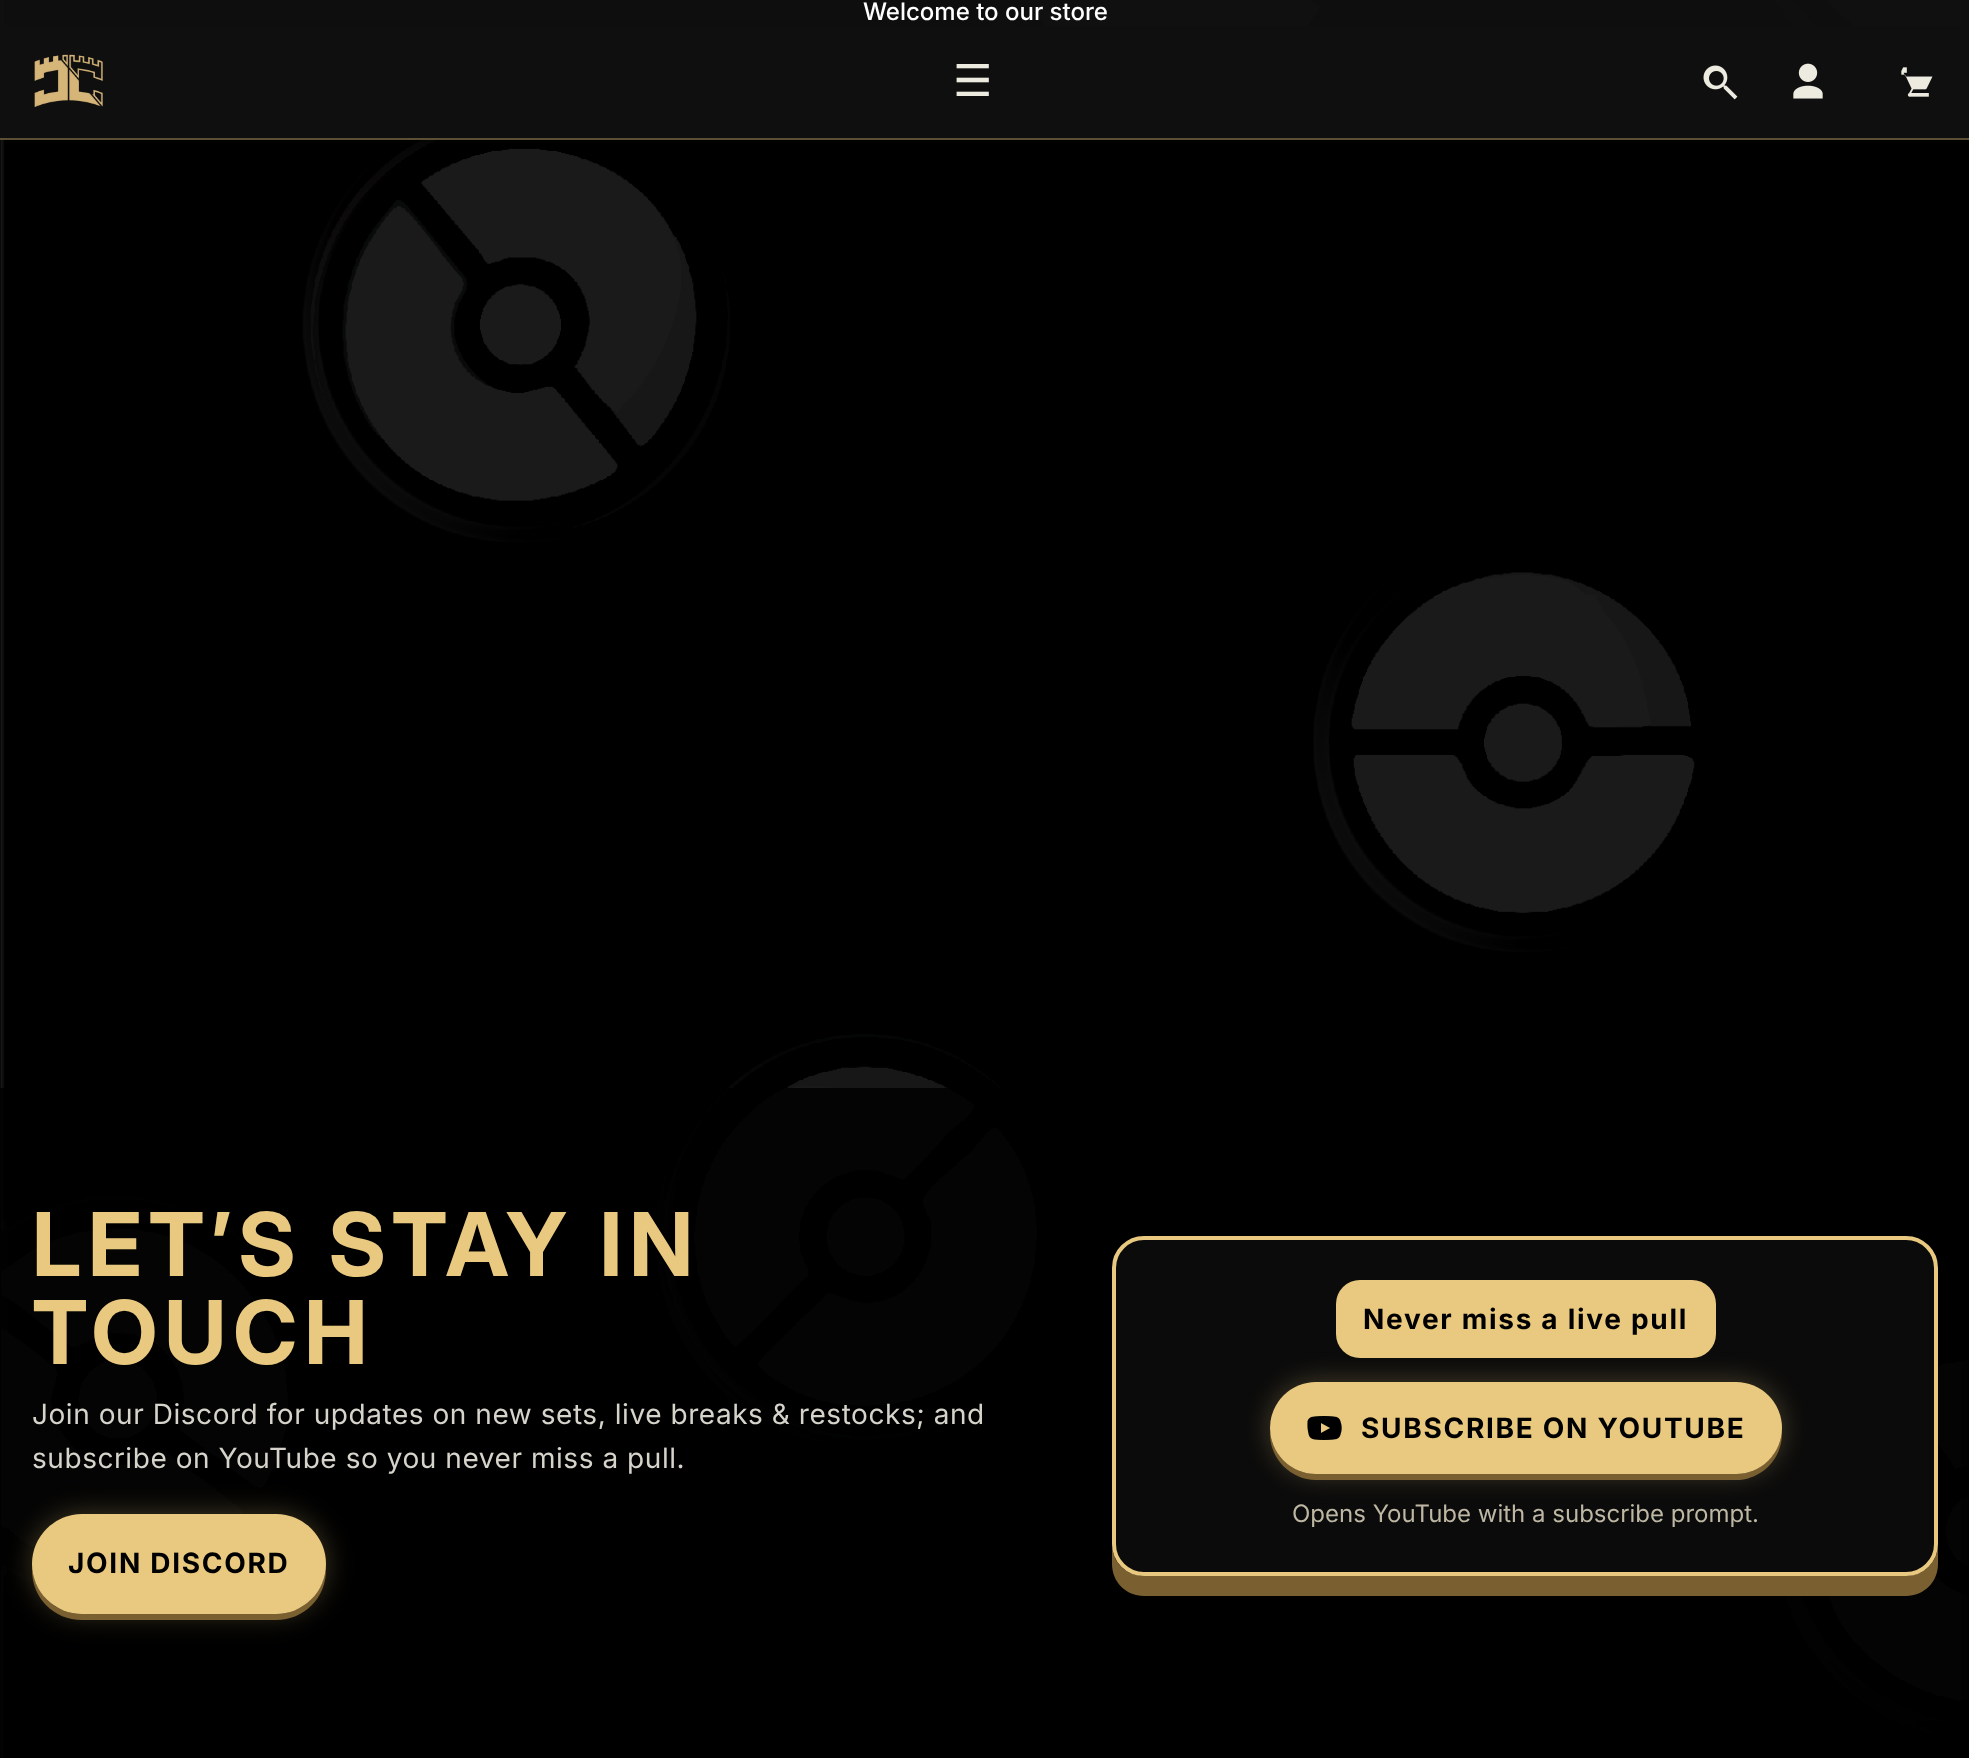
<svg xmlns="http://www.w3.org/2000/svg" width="1969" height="1758">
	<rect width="100%" height="100%" fill="#FFFFFF" />
	<image x="0" y="0" width="1969" height="1758" href="assets/img1.png" />
	<rect x="0" y="0" width="1969" height="26" fill="#0F0F0F" fill-opacity="0.9" />
	<text x="863" y="20" font-family="Inter" font-size="24" font-weight="500" fill="#FFFFFF">Welcome to our store</text>
	<rect x="0" y="26" width="1969" height="112" fill="#0F0F0F" />
	<rect x="0" y="138" width="1969" height="2" fill="#5B5036" />
	<image x="34" y="54" width="69" height="54" href="assets/img2.png" />
	<text x="953" y="96" font-family="DejaVu Sans" font-size="44" fill="#EDEAE0">☰</text>
	<image x="1703" y="65" width="35" height="35" href="assets/img3.png" />
	<image x="1793" y="63" width="30" height="36" href="assets/img4.png" />
	<image x="1901" y="67" width="32" height="30" href="assets/img5.png" />
	<rect x="0" y="1088" width="1968" height="670" fill="#000000" fill-opacity="0.81" />
	<g font-family="Inter" font-size="88" font-weight="700" letter-spacing="7" fill="#E9C97F">
		<text x="32" y="1276">LET’S STAY IN</text>
		<text x="32" y="1364">TOUCH</text>
	</g>
	<text x="32" y="1424" font-family="Inter" font-size="28" letter-spacing="0.55" fill="#D5D3CA">Join our Discord for updates on new sets, live breaks &amp; restocks; and</text>
	<rect x="32" y="1514" width="294" height="100" rx="50" fill="#E9C97F" fill-opacity="0.28" filter="blur(14px)" />
	<text x="32" y="1468" font-family="Inter" font-size="28" letter-spacing="0.55" fill="#D5D3CA">subscribe on YouTube so you never miss a pull.</text>
	<path d="M32 1567V1570C32 1598 54 1620 82 1620H276C304 1620 326 1598 326 1570V1567C324 1593 303 1614 276 1614H82C55 1614 34 1593 32 1567Z" fill="#7A6030" />
	<rect x="32" y="1514" width="294" height="100" rx="50" fill="#E9C97F" />
	<text x="68" y="1573" font-family="'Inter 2'" font-size="28" font-weight="700" letter-spacing="1.7" fill="#000000">JOIN DISCORD</text>
	<path d="M1112 1544V1564C1112 1582 1126 1596 1144 1596H1906C1924 1596 1938 1582 1938 1564V1544C1938 1562 1924 1576 1906 1576H1144C1126 1576 1112 1562 1112 1544Z" fill="#7A6030" />
	<rect x="1114" y="1238" width="822" height="336" rx="30" fill="#0B0B0B" stroke="#E9C97F" stroke-width="4" />
	<rect x="1336" y="1280" width="380" height="78" rx="24" fill="#E9C97F" />
	<text x="1363" y="1329" font-family="'Inter 2'" font-size="28" font-weight="700" letter-spacing="1.7" fill="#000000">Never miss a live pull</text>
	<rect x="1270" y="1382" width="512" height="92" rx="46" fill="#E9C97F" fill-opacity="0.28" filter="blur(14px)" />
	<path d="M1270 1431V1434C1270 1459 1291 1480 1316 1480H1736C1761 1480 1782 1459 1782 1434V1431C1780 1455 1760 1474 1736 1474H1316C1292 1474 1272 1455 1270 1431Z" fill="#7A6030" />
	<rect x="1270" y="1382" width="512" height="92" rx="46" fill="#E9C97F" />
	<image x="1307" y="1416" width="35" height="24" href="assets/img6.png" />
	<text x="1361" y="1438" font-family="'Inter 2'" font-size="28" font-weight="700" letter-spacing="1.7" fill="#000000">SUBSCRIBE ON YOUTUBE</text>
	<text x="1292" y="1522" font-family="Inter" font-size="24" fill="#BDB7A3">Opens YouTube with a subscribe prompt.</text>
</svg>
